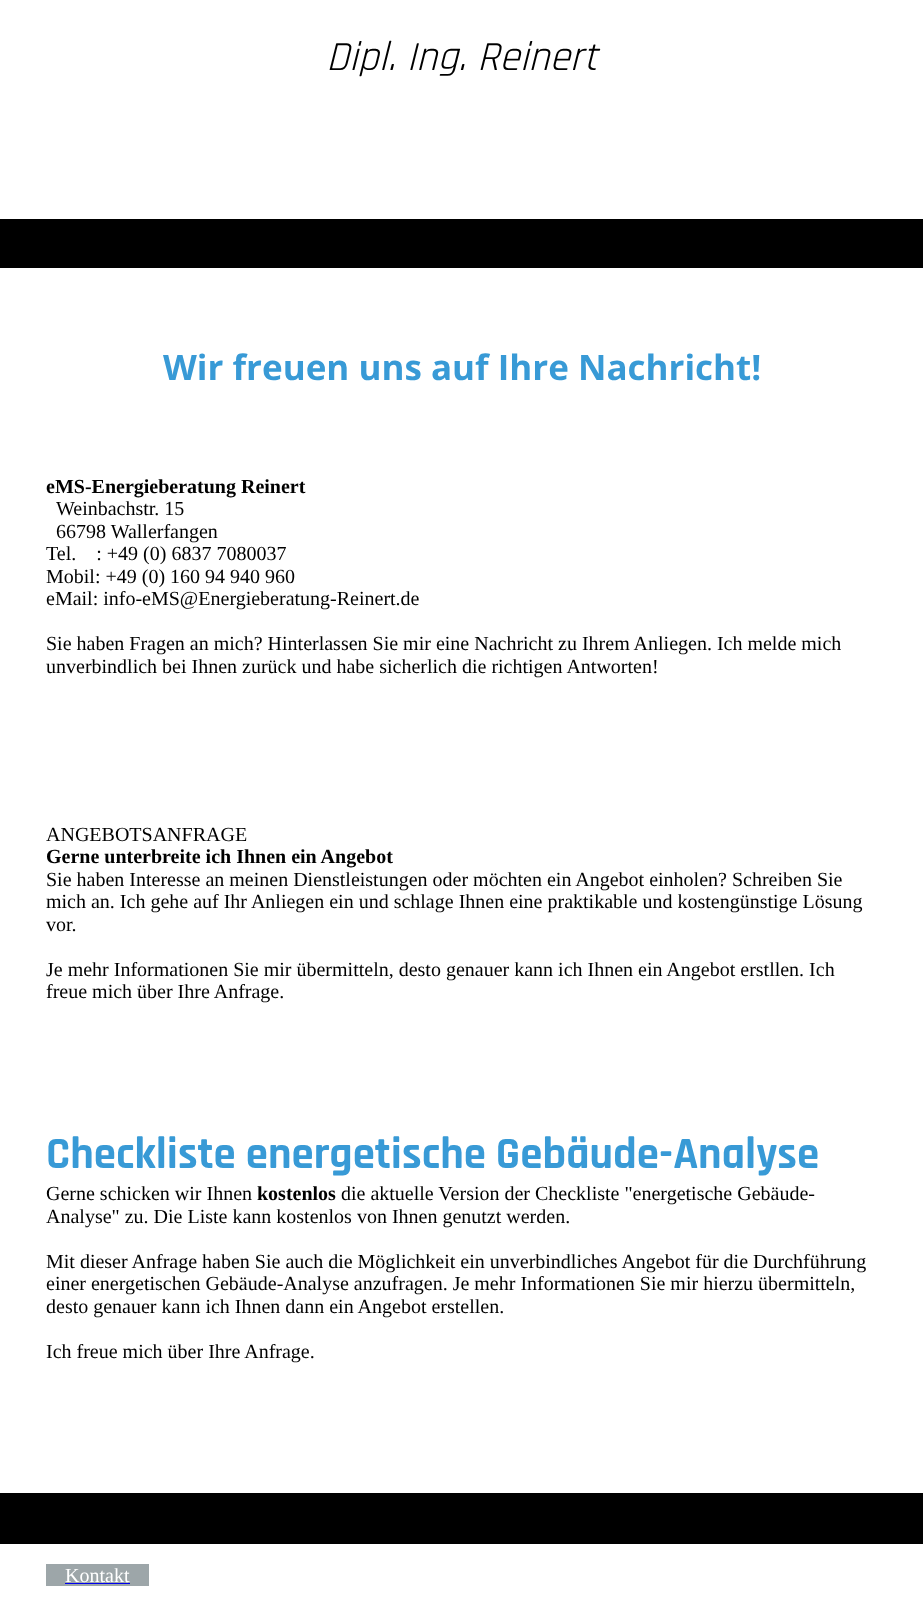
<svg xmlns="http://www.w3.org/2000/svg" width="923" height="1620">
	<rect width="100%" height="100%" fill="#FFFFFF" />
	<text x="326" y="70" font-family="Rajdhani" font-size="41.5" font-style="italic" fill="#000000">Dipl. Ing. Reinert</text>
	<rect x="0" y="219" width="923" height="49" fill="#000000" />
	<text x="163" y="380" font-family="Open Sans" font-size="35" font-weight="700" fill="#389AD6">Wir freuen uns auf Ihre Nachricht!</text>
	<text x="46" y="493" font-family="Liberation Serif" font-size="20" font-weight="700" fill="#000000">eMS-Energieberatung Reinert</text>
	<g font-family="Liberation Serif" font-size="20" fill="#000000">
		<text x="56" y="515">Weinbachstr. 15</text>
		<text x="56" y="538">66798 Wallerfangen</text>
		<text x="46" y="560" xml:space="preserve">Tel.    : +49 (0) 6837 7080037</text>
		<text x="46" y="583">Mobil: +49 (0) 160 94 940 960</text>
		<text x="46" y="605">eMail: info-eMS@Energieberatung-Reinert.de</text>
		<text x="46" y="650">Sie haben Fragen an mich? Hinterlassen Sie mir eine Nachricht zu Ihrem Anliegen. Ich melde mich</text>
		<text x="46" y="673">unverbindlich bei Ihnen zurück und habe sicherlich die richtigen Antworten!</text>
		<text x="46" y="841">ANGEBOTSANFRAGE</text>
	</g>
	<text x="46" y="863" font-family="Liberation Serif" font-size="20" font-weight="700" fill="#000000">Gerne unterbreite ich Ihnen ein Angebot</text>
	<g font-family="Liberation Serif" font-size="20" fill="#000000">
		<text x="46" y="886">Sie haben Interesse an meinen Dienstleistungen oder möchten ein Angebot einholen? Schreiben Sie</text>
		<text x="46" y="908">mich an. Ich gehe auf Ihr Anliegen ein und schlage Ihnen eine praktikable und kostengünstige Lösung</text>
		<text x="46" y="931">vor.</text>
		<text x="46" y="976">Je mehr Informationen Sie mir übermitteln, desto genauer kann ich Ihnen ein Angebot erstllen. Ich</text>
		<text x="46" y="998">freue mich über Ihre Anfrage.</text>
	</g>
	<text x="46" y="1168" font-family="Rajdhani" font-size="45" font-weight="700" fill="#389AD6">Checkliste energetische Gebäude-Analyse</text>
	<text x="46" y="1200" font-family="Liberation Serif" font-size="20" fill="#000000">Gerne schicken wir Ihnen</text>
	<text x="257" y="1200" font-family="Liberation Serif" font-size="20" font-weight="700" fill="#000000">kostenlos</text>
	<g font-family="Liberation Serif" font-size="20" fill="#000000">
		<text x="341" y="1200">die aktuelle Version der Checkliste "energetische Gebäude-</text>
		<text x="46" y="1223">Analyse" zu. Die Liste kann kostenlos von Ihnen genutzt werden.</text>
		<text x="46" y="1268">Mit dieser Anfrage haben Sie auch die Möglichkeit ein unverbindliches Angebot für die Durchführung</text>
		<text x="46" y="1290">einer energetischen Gebäude-Analyse anzufragen. Je mehr Informationen Sie mir hierzu übermitteln,</text>
		<text x="46" y="1313">desto genauer kann ich Ihnen dann ein Angebot erstellen.</text>
		<text x="46" y="1358">Ich freue mich über Ihre Anfrage.</text>
	</g>
	<rect x="0" y="1493" width="923" height="51" fill="#000000" />
	<rect x="46" y="1564" width="103" height="22" fill="#9DA6A9" />
	<text x="65" y="1582" font-family="Liberation Serif" font-size="20" fill="#FFFFFF">Kontakt</text>
	<rect x="65" y="1583" width="65" height="1" fill="#0000EE" />
</svg>
